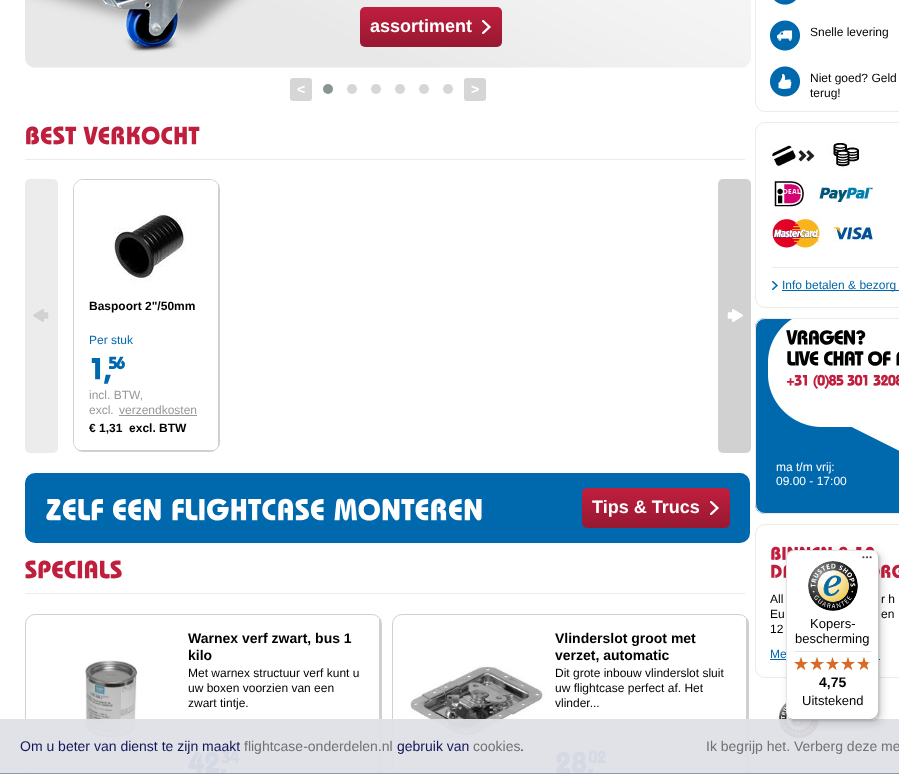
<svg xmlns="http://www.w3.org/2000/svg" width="899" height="774">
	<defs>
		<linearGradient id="g1" gradientUnits="userSpaceOnUse" x1="431" y1="7" x2="431" y2="47"><stop offset="0" stop-color="#C01F3E" /><stop offset="1" stop-color="#971831" /></linearGradient>
		<linearGradient id="g2" gradientUnits="userSpaceOnUse" x1="656" y1="488" x2="656" y2="528"><stop offset="0" stop-color="#C01F3E" /><stop offset="1" stop-color="#971831" /></linearGradient>
	</defs>
	<rect width="100%" height="100%" fill="#FFFFFF" />
	<image x="25" y="0" width="726" height="68" href="assets/img1.png" />
	<rect x="360" y="7" width="142" height="40" rx="5" fill="url(#g1)" />
	<text x="370" y="32" font-family="Liberation Sans" font-size="18" font-weight="700" fill="#FFFFFF">assortiment</text>
	<image x="482" y="20" width="9" height="14" href="assets/img2.png" />
	<circle cx="328" cy="89" r="5" fill="#869791" />
	<circle cx="352" cy="89" r="5" fill="#D6D6D6" />
	<circle cx="376" cy="89" r="5" fill="#D6D6D6" />
	<circle cx="400" cy="89" r="5" fill="#D6D6D6" />
	<circle cx="424" cy="89" r="5" fill="#D6D6D6" />
	<circle cx="448" cy="89" r="5" fill="#D6D6D6" />
	<rect x="290" y="78" width="22" height="23" rx="3" fill="#D6D6D6" />
	<text x="297" y="94" font-family="Liberation Sans" font-size="14" font-weight="700" fill="#FFFFFF">&lt;</text>
	<rect x="464" y="78" width="22" height="23" rx="3" fill="#D6D6D6" />
	<text x="471" y="94" font-family="Liberation Sans" font-size="14" font-weight="700" fill="#FFFFFF">&gt;</text>
	<image x="26" y="126" width="51" height="19" href="assets/img3.png" />
	<image x="83" y="126" width="117" height="19" href="assets/img4.png" />
	<rect x="25" y="159" width="720" height="1" fill="#EBEBEB" />
	<rect x="25" y="179" width="33" height="274" rx="5" fill="#ECECEC" />
	<image x="33" y="309" width="16" height="13" href="assets/img5.png" />
	<rect x="73.5" y="179.5" width="146" height="272" rx="9.5" fill="none" stroke="#D0D0D0" />
	<rect x="218" y="184" width="1" height="263" fill="#D0D0D0" />
	<rect x="78" y="450" width="137" height="1" fill="#D0D0D0" />
	<path d="M83 180C78 180 74 184 74 189V442C74 446 78 450 83 450H210C214 450 218 446 218 442V189C218 184 214 180 210 180Z" fill="#FFFFFF" />
	<image x="114" y="211" width="72" height="72" href="assets/img6.png" />
	<text x="89" y="310" font-family="Liberation Sans" font-size="12" font-weight="700" fill="#000000">Baspoort 2"/50mm</text>
	<text x="89" y="344" font-family="Liberation Sans" font-size="12" fill="#0068AD">Per stuk</text>
	<image x="91" y="358" width="20" height="26" href="assets/img7.png" />
	<image x="109" y="356" width="16" height="14" href="assets/img8.png" />
	<g font-family="Liberation Sans" font-size="12" fill="#999999">
		<text x="89" y="399">incl. BTW,</text>
		<text x="89" y="414">excl.</text>
		<text x="119" y="414">verzendkosten</text>
	</g>
	<rect x="119" y="415" width="78" height="1" fill="#999999" />
	<text x="89" y="432" font-family="Liberation Sans" font-size="12" font-weight="700" fill="#000000" xml:space="preserve">€ 1,31  excl. BTW</text>
	<rect x="718" y="179" width="33" height="274" rx="5" fill="#D1D1D1" />
	<image x="727" y="309" width="16" height="13" href="assets/img9.png" />
	<rect x="25" y="473" width="725" height="70" rx="10" fill="#0068AD" />
	<image x="46" y="499" width="57" height="22" href="assets/img10.png" />
	<image x="113" y="498" width="48" height="23" href="assets/img11.png" />
	<image x="172" y="498" width="152" height="23" href="assets/img12.png" />
	<image x="334" y="498" width="148" height="23" href="assets/img13.png" />
	<rect x="582" y="488" width="148" height="40" rx="5" fill="url(#g2)" />
	<text x="592" y="513" font-family="Liberation Sans" font-size="18" font-weight="700" fill="#FFFFFF">Tips &amp; Trucs</text>
	<image x="710" y="501" width="9" height="14" href="assets/img2.png" />
	<image x="25" y="560" width="97" height="19" href="assets/img14.png" />
	<rect x="25" y="593" width="720" height="1" fill="#EBEBEB" />
	<rect x="25.5" y="614.5" width="356" height="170" rx="9.5" fill="none" stroke="#D0D0D0" />
	<rect x="379" y="619" width="2" height="155" fill="#D0D0D0" />
	<image x="85" y="660" width="53" height="79" href="assets/img15.png" />
	<g font-family="Liberation Sans" font-size="14" font-weight="700" fill="#000000">
		<text x="188" y="643">Warnex verf zwart, bus 1</text>
		<text x="188" y="660">kilo</text>
	</g>
	<g font-family="Liberation Sans" font-size="12" fill="#000000">
		<text x="188" y="677">Met warnex structuur verf kunt u</text>
		<text x="188" y="692">uw boxen voorzien van een</text>
		<text x="188" y="707">zwart tintje.</text>
	</g>
	<image x="188" y="751" width="39" height="22" href="assets/img16.png" />
	<image x="221" y="750" width="19" height="13" href="assets/img17.png" />
	<rect x="392.5" y="614.5" width="356" height="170" rx="9.5" fill="none" stroke="#D0D0D0" />
	<rect x="746" y="619" width="2" height="155" fill="#D0D0D0" />
	<image x="409" y="666" width="136" height="71" href="assets/img18.png" />
	<g font-family="Liberation Sans" font-size="14" font-weight="700" fill="#000000">
		<text x="555" y="643">Vlinderslot groot met</text>
		<text x="555" y="660">verzet, automatic</text>
	</g>
	<g font-family="Liberation Sans" font-size="12" fill="#000000">
		<text x="555" y="677">Dit grote inbouw vlinderslot sluit</text>
		<text x="555" y="692">uw flightcase perfect af. Het</text>
		<text x="555" y="707">vlinder...</text>
	</g>
	<image x="556" y="751" width="38" height="22" href="assets/img19.png" />
	<image x="588" y="750" width="18" height="14" href="assets/img20.png" />
	<rect x="755.5" y="-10.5" width="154" height="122" rx="9.5" fill="none" stroke="#EBEBEB" />
	<image x="774" y="0" width="22" height="5" href="assets/img21.png" />
	<image x="770" y="20" width="30" height="31" href="assets/img22.png" />
	<text x="810" y="36" font-family="Liberation Sans" font-size="12" fill="#000000">Snelle levering</text>
	<image x="770" y="66" width="30" height="31" href="assets/img23.png" />
	<g font-family="Liberation Sans" font-size="12" fill="#000000">
		<text x="810" y="82">Niet goed? Geld</text>
		<text x="810" y="97">terug!</text>
	</g>
	<rect x="755.5" y="122.5" width="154" height="185" rx="9.5" fill="none" stroke="#EBEBEB" />
	<rect x="772" y="267" width="127" height="1" fill="#EBEBEB" />
	<image x="772" y="141" width="43" height="27" href="assets/img24.png" />
	<image x="828" y="141" width="31" height="29" href="assets/img25.png" />
	<image x="773" y="179" width="31" height="28" href="assets/img26.png" />
	<image x="819" y="187" width="54" height="16" href="assets/img27.png" />
	<image x="772" y="218" width="48" height="30" href="assets/img28.png" />
	<image x="833" y="226" width="40" height="16" href="assets/img29.png" />
	<image x="772" y="281" width="6" height="9" href="assets/img30.png" />
	<rect x="782" y="290" width="117" height="1" fill="#0068AD" />
	<text x="782" y="289" font-family="Liberation Sans" font-size="12" fill="#0068AD">Info betalen &amp; bezorg</text>
	<rect x="755" y="318" width="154" height="196" rx="10" fill="#0069AE" />
	<image x="768" y="319" width="131" height="132" href="assets/img31.png" />
	<rect x="755.5" y="318.5" width="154" height="195" rx="9.5" fill="none" stroke="#EBEBEB" />
	<image x="786" y="330" width="80" height="15" href="assets/img32.png" />
	<image x="787" y="351" width="32" height="15" href="assets/img33.png" />
	<image x="824" y="351" width="40" height="15" href="assets/img34.png" />
	<image x="868" y="351" width="23" height="15" href="assets/img35.png" />
	<image x="896" y="351" width="3" height="15" href="assets/img36.png" />
	<image x="786" y="375" width="21" height="11" href="assets/img37.png" />
	<image x="813" y="374" width="31" height="15" href="assets/img38.png" />
	<image x="847" y="374" width="21" height="12" href="assets/img39.png" />
	<image x="873" y="374" width="26" height="12" href="assets/img40.png" />
	<g font-family="Liberation Sans" font-size="12" fill="#FFFFFF">
		<text x="776" y="471">ma t/m vrij:</text>
		<text x="776" y="485">09.00 - 17:00</text>
	</g>
	<rect x="755.5" y="524.5" width="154" height="153" rx="9.5" fill="none" stroke="#EBEBEB" />
	<image x="771" y="546" width="61" height="14" href="assets/img41.png" />
	<image x="839" y="546" width="35" height="5" href="assets/img42.png" />
	<image x="771" y="564" width="15" height="14" href="assets/img43.png" />
	<image x="879" y="564" width="20" height="14" href="assets/img44.png" />
	<g font-family="Liberation Sans" font-size="12" fill="#000000">
		<text x="770" y="603">All</text>
		<text x="881" y="603">r h</text>
		<text x="770" y="618">Eu</text>
		<text x="881" y="618">en</text>
		<text x="770" y="633">12</text>
	</g>
	<text x="770" y="658" font-family="Liberation Sans" font-size="12" fill="#0068AD">Me</text>
	<rect x="770" y="659" width="110" height="1" fill="#0068AD" />
	<image x="779" y="702" width="40" height="36" href="assets/img45.png" />
	<rect x="0" y="719" width="899" height="54" fill="#DFDFE7" fill-opacity="0.95" />
	<rect x="0" y="773" width="899" height="1" fill="#9096B1" />
	<text x="20" y="751" font-family="Liberation Sans" font-size="14" fill="#121758">Om u beter van dienst te zijn maakt</text>
	<text x="244" y="751" font-family="Liberation Sans" font-size="14" fill="#727272">flightcase-onderdelen.nl</text>
	<text x="397" y="751" font-family="Liberation Sans" font-size="14" fill="#121758">gebruik van</text>
	<text x="473" y="751" font-family="Liberation Sans" font-size="14" fill="#727272">cookies</text>
	<text x="520" y="751" font-family="Liberation Sans" font-size="14" fill="#121758">.</text>
	<text x="706" y="751" font-family="Liberation Sans" font-size="14" fill="#727272">Ik begrijp het. Verberg deze me</text>
	<rect x="789" y="553" width="93" height="170" rx="8" fill="#000000" fill-opacity="0.15" filter="blur(4px)" />
	<rect x="787" y="551" width="93" height="170" rx="8" fill="#000000" fill-opacity="0.15" filter="blur(1px)" />
	<rect x="786" y="550" width="93" height="170" rx="8" fill="#FFFFFF" />
	<path d="M795 551H872C874 551 876 552 878 554C876 552 874 550 871 550H794C790 550 786 554 786 558V712C786 715 788 717 790 719C788 717 787 715 787 713V559C787 555 791 551 795 551Z" fill="#000000" fill-opacity="0.1" />
	<path d="M787 716C789 718 791 720 794 720H871C875 720 879 716 879 712V558C879 555 877 553 875 551C877 553 878 555 878 557V711C878 715 874 719 870 719H793C791 719 789 718 787 716Z" fill="#000000" fill-opacity="0.2" />
	<path d="M788 717C789 719 792 720 794 720H871C875 720 879 716 879 712V558C879 556 878 553 876 552C877 553 878 555 878 557V711C878 716 875 719 870 719H793C791 719 789 718 788 717Z" fill="#323232" fill-opacity="0.2" />
	<path d="M870 720H871C875 720 879 716 879 712V558C879 554 875 550 871 550H870C875 550 878 553 878 558V712C878 716 875 720 870 720Z" fill="#FFFFFF" fill-opacity="0.3" />
	<image x="862" y="556" width="10" height="3" href="assets/img46.png" />
	<image x="808" y="561" width="50" height="50" href="assets/img47.png" />
	<g font-family="Liberation Sans" font-size="13" fill="#000000">
		<text x="810" y="628">Kopers-</text>
		<text x="795" y="643">bescherming</text>
	</g>
	<rect x="794" y="651" width="77" height="1" fill="#E5E5E5" />
	<image x="794" y="657" width="14" height="13" href="assets/img48.png" />
	<image x="810" y="657" width="14" height="13" href="assets/img48.png" />
	<image x="826" y="657" width="13" height="13" href="assets/img49.png" />
	<image x="841" y="657" width="14" height="13" href="assets/img48.png" />
	<image x="857" y="657" width="14" height="13" href="assets/img48.png" />
	<image x="794" y="657" width="14" height="13" href="assets/img50.png" />
	<image x="810" y="657" width="14" height="13" href="assets/img50.png" />
	<image x="826" y="657" width="13" height="13" href="assets/img51.png" />
	<image x="841" y="657" width="14" height="13" href="assets/img50.png" />
	<image x="857" y="657" width="11" height="13" href="assets/img52.png" />
	<text x="819" y="687" font-family="Liberation Sans" font-size="14" font-weight="700" fill="#000000">4,75</text>
	<text x="802" y="705" font-family="Liberation Sans" font-size="13" fill="#000000">Uitstekend</text>
</svg>
